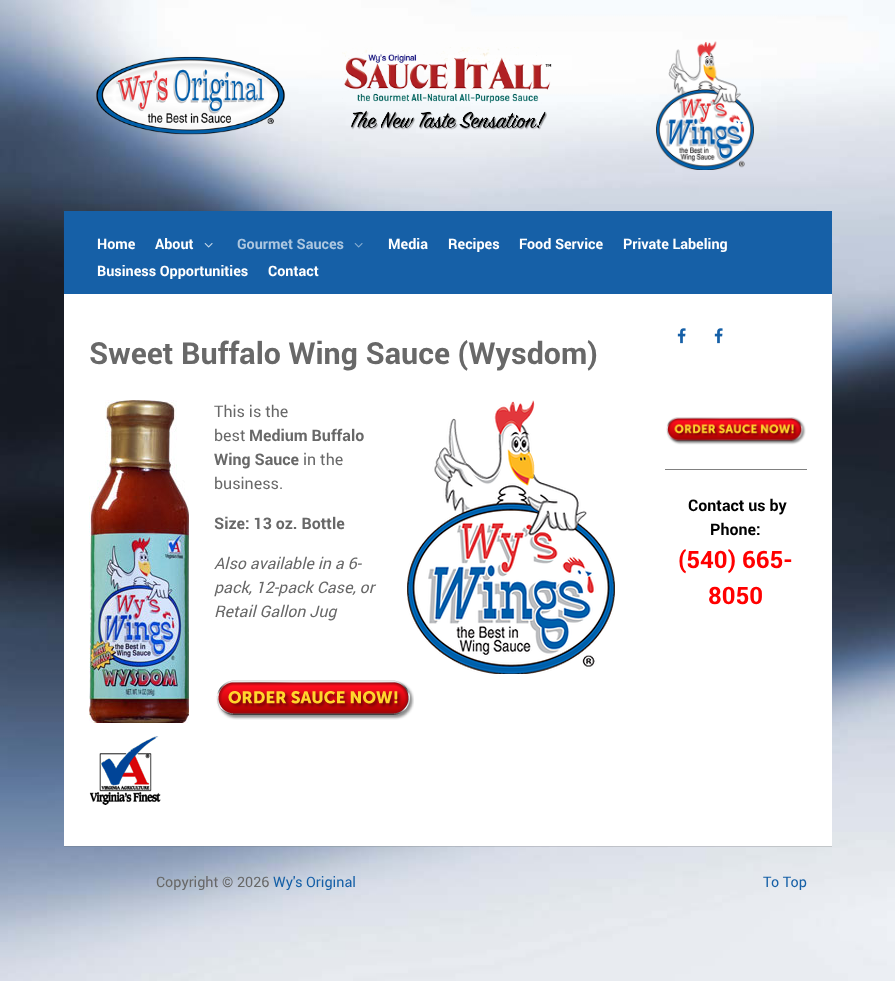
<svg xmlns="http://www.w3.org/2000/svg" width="895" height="981">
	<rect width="100%" height="100%" fill="#FFFFFF" />
	<image x="0" y="0" width="895" height="981" href="assets/img1.png" />
	<image x="96" y="56" width="189" height="79" href="assets/img2.png" />
	<image x="342" y="47" width="210" height="57" href="assets/img3.png" />
	<image x="351" y="110" width="196" height="20" href="assets/img4.png" />
	<image x="656" y="41" width="98" height="129" href="assets/img5.png" />
	<rect x="64" y="211" width="768" height="83" fill="#1660A7" />
	<g font-family="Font" font-size="14.4" font-weight="700" fill="#FFFFFF">
		<text x="97" y="249">Home</text>
		<text x="155" y="249">About</text>
	</g>
	<image x="204" y="243" width="9" height="5" href="assets/img6.png" />
	<text x="237" y="249" font-family="Font" font-size="14.4" font-weight="700" fill="#ADC7E0">Gourmet Sauces</text>
	<image x="354" y="243" width="9" height="5" href="assets/img7.png" />
	<g font-family="Font" font-size="14.4" font-weight="700" fill="#FFFFFF">
		<text x="388" y="249">Media</text>
		<text x="448" y="249">Recipes</text>
		<text x="519" y="249">Food Service</text>
		<text x="623" y="249">Private Labeling</text>
		<text x="97" y="276">Business Opportunities</text>
		<text x="268" y="276">Contact</text>
	</g>
	<rect x="64" y="294" width="768" height="552" fill="#FFFFFF" />
	<text x="89" y="364" font-family="Font" font-size="30.4" font-weight="700" fill="#686868">Sweet Buffalo Wing Sauce (Wysdom)</text>
	<image x="89" y="400" width="100" height="323" href="assets/img8.png" />
	<text x="214" y="417" font-family="Font" font-size="16" fill="#686868">This is the</text>
	<image x="407" y="400" width="208" height="274" href="assets/img9.png" />
	<text x="214" y="441" font-family="Font" font-size="16" fill="#686868">best</text>
	<g font-family="Font" font-size="16" font-weight="700" fill="#686868">
		<text x="249" y="441">Medium Buffalo</text>
		<text x="214" y="465">Wing Sauce</text>
	</g>
	<g font-family="Font" font-size="16" fill="#686868">
		<text x="303" y="465">in the</text>
		<text x="214" y="489">business.</text>
	</g>
	<text x="214" y="529" font-family="Font" font-size="16" font-weight="700" fill="#686868">Size: 13 oz. Bottle</text>
	<g font-family="Font" font-size="16" font-style="italic" fill="#686868">
		<text x="214" y="569">Also available in a 6-</text>
		<text x="214" y="593">pack, 12-pack Case, or</text>
		<text x="214" y="617">Retail Gallon Jug</text>
	</g>
	<image x="216" y="680" width="198" height="40" href="assets/img10.png" />
	<image x="89" y="736" width="72" height="69" href="assets/img11.png" />
	<image x="677" y="328" width="9" height="16" href="assets/img12.png" />
	<image x="714" y="328" width="9" height="16" href="assets/img12.png" />
	<image x="666" y="417" width="140" height="28" href="assets/img13.png" />
	<rect x="665" y="469" width="142" height="1" fill="#808080" />
	<g font-family="Font" font-size="16" font-weight="700" fill="#000000">
		<text x="688" y="511">Contact us by</text>
		<text x="710" y="535">Phone:</text>
	</g>
	<g font-family="Font" font-size="24" font-weight="700" fill="#FF0000">
		<text x="678" y="568">(540) 665-</text>
		<text x="708" y="604">8050</text>
	</g>
	<rect x="64" y="846" width="768" height="1" fill="#686868" fill-opacity="0.25" />
	<text x="156" y="887" font-family="Font" font-size="14.4" fill="#686868">Copyright © 2026</text>
	<g font-family="Font" font-size="14.4" fill="#1660A7">
		<text x="273" y="887">Wy's Original</text>
		<text x="763" y="887">To Top</text>
	</g>
</svg>
